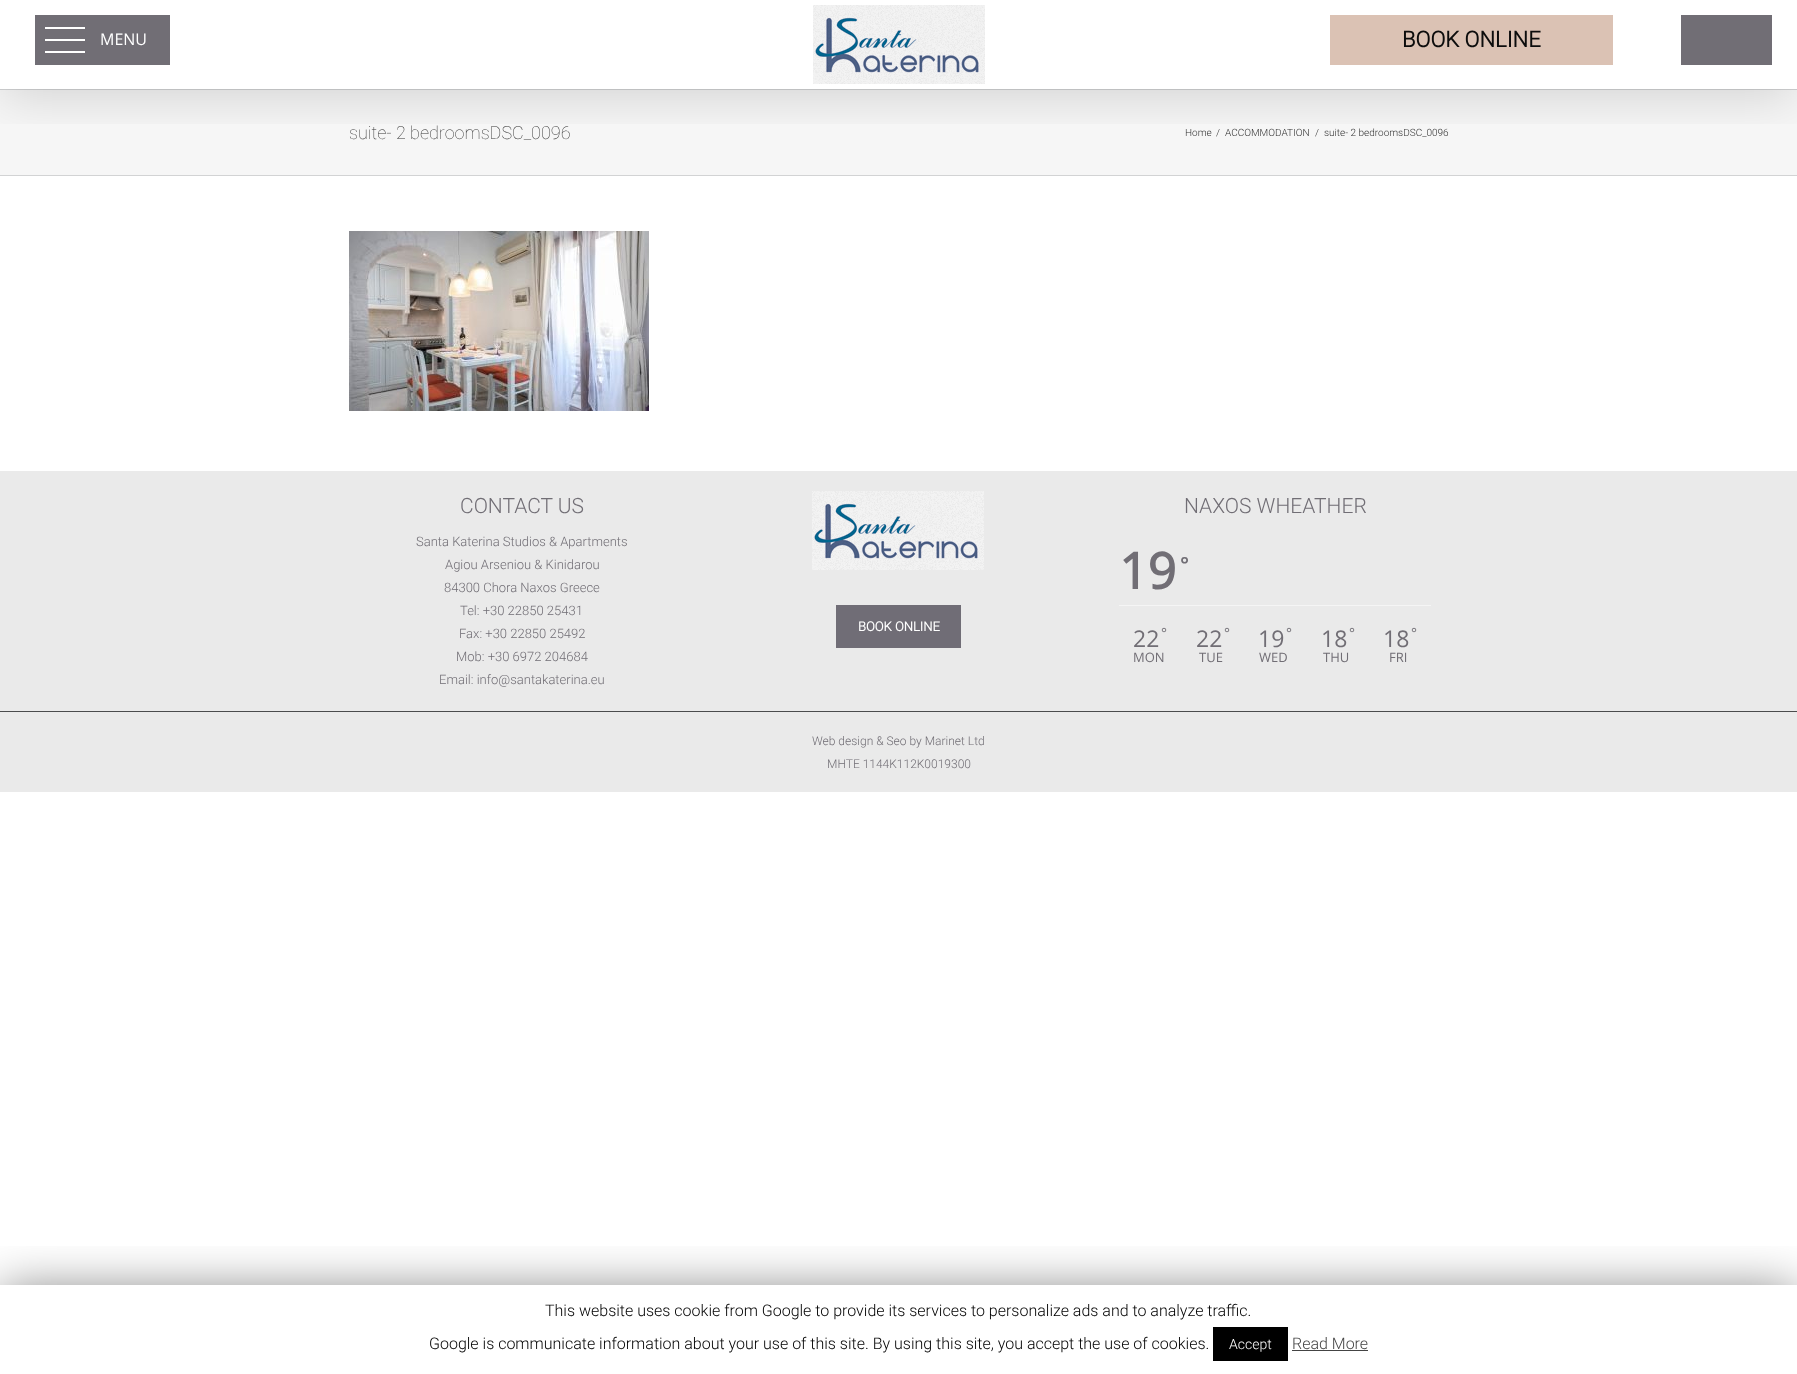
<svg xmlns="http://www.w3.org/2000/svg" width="1797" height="1374">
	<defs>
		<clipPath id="clip1"><rect x="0" y="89" width="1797" height="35" /></clipPath>
		<clipPath id="clip2"><rect x="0" y="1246" width="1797" height="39" /></clipPath>
	</defs>
	<rect width="100%" height="100%" fill="#FFFFFF" />
	<rect x="0" y="90" width="1797" height="85" fill="#F6F6F6" />
	<rect x="0" y="89" width="1797" height="1" fill="#D2D3D4" />
	<g clip-path="url(#clip1)">
		<rect x="2" y="12" width="1793" height="85" fill="#000000" fill-opacity="0.14" filter="blur(25px)" />
	</g>
	<rect x="35" y="15" width="135" height="50" fill="#716E75" />
	<rect x="45" y="27" width="40" height="2" fill="#FFFFFF" />
	<rect x="45" y="39" width="40" height="2" fill="#FFFFFF" />
	<text x="100" y="45" font-family="Open Sans" font-size="16" fill="#FFFFFF">MENU</text>
	<rect x="45" y="51" width="40" height="2" fill="#FFFFFF" />
	<rect x="1330" y="15" width="283" height="50" fill="#DBC2B4" />
	<text x="1402" y="47" font-family="Roboto" font-size="22" font-weight="700" fill="#0C0C0C">BOOK ONLINE</text>
	<rect x="1681" y="15" width="91" height="50" fill="#716E75" />
	<image x="813" y="5" width="172" height="79" href="assets/img1.png" />
	<rect x="0" y="175" width="1797" height="1" fill="#D2D3D4" />
	<text x="349" y="139" font-family="Roboto" font-size="18" font-weight="100" fill="#333333">suite- 2 bedroomsDSC_0096</text>
	<g font-family="Roboto" font-size="10" font-weight="300" fill="#333333">
		<text x="1185" y="136">Home</text>
		<text x="1216" y="136">/</text>
		<text x="1225" y="136">ACCOMMODATION</text>
		<text x="1315" y="136">/</text>
		<text x="1324" y="136">suite- 2 bedroomsDSC_0096</text>
	</g>
	<image x="349" y="231" width="300" height="180" href="assets/img2.png" />
	<rect x="0" y="471" width="1797" height="240" fill="#EAEAEA" />
	<text x="460" y="513" font-family="Roboto" font-size="21" font-weight="300" fill="#716E75">CONTACT US</text>
	<g font-family="Roboto" font-size="13" font-weight="300" fill="#716E75">
		<text x="416" y="546">Santa Katerina Studios &amp; Apartments</text>
		<text x="445" y="569">Agiou Arseniou &amp; Kinidarou</text>
		<text x="444" y="592">84300 Chora Naxos Greece</text>
		<text x="460" y="615">Tel: +30 22850 25431</text>
		<text x="459" y="638">Fax: +30 22850 25492</text>
		<text x="456" y="661">Mob: +30 6972 204684</text>
		<text x="439" y="684">Email: info@santakaterina.eu</text>
	</g>
	<image x="812" y="491" width="172" height="79" href="assets/img1.png" />
	<rect x="836" y="605" width="125" height="43" fill="#706D76" />
	<text x="858" y="631" font-family="Roboto" font-size="13" font-weight="700" fill="#FFFFFF">BOOK ONLINE</text>
	<text x="1184" y="513" font-family="Roboto" font-size="21" font-weight="300" fill="#716E75">NAXOS WHEATHER</text>
	<text x="1119" y="589" font-family="Open Sans" font-size="50" font-weight="700" fill="#716E75">19</text>
	<text x="1180" y="572" font-family="Open Sans" font-size="20" font-weight="700" fill="#716E75">°</text>
	<rect x="1119" y="605" width="312" height="1" fill="#F5F5F5" />
	<text x="1133" y="647" font-family="Open Sans" font-size="23" fill="#716E75">22</text>
	<text x="1161" y="638" font-family="Open Sans" font-size="14" fill="#716E75">°</text>
	<text x="1133" y="662" font-family="Open Sans" font-size="13" fill="#716E75">MON</text>
	<text x="1196" y="647" font-family="Open Sans" font-size="23" fill="#716E75">22</text>
	<text x="1224" y="638" font-family="Open Sans" font-size="14" fill="#716E75">°</text>
	<text x="1199" y="662" font-family="Open Sans" font-size="13" fill="#716E75">TUE</text>
	<text x="1258" y="647" font-family="Open Sans" font-size="23" fill="#716E75">19</text>
	<text x="1286" y="638" font-family="Open Sans" font-size="14" fill="#716E75">°</text>
	<text x="1259" y="662" font-family="Open Sans" font-size="13" fill="#716E75">WED</text>
	<text x="1321" y="647" font-family="Open Sans" font-size="23" fill="#716E75">18</text>
	<text x="1349" y="638" font-family="Open Sans" font-size="14" fill="#716E75">°</text>
	<text x="1323" y="662" font-family="Open Sans" font-size="13" fill="#716E75">THU</text>
	<text x="1383" y="647" font-family="Open Sans" font-size="23" fill="#716E75">18</text>
	<text x="1411" y="638" font-family="Open Sans" font-size="14" fill="#716E75">°</text>
	<text x="1389" y="662" font-family="Open Sans" font-size="13" fill="#716E75">FRI</text>
	<rect x="0" y="712" width="1797" height="80" fill="#EAEAEA" />
	<rect x="0" y="711" width="1797" height="1" fill="#4B4C4D" />
	<g font-family="Roboto" font-size="12" font-weight="300" fill="#716E75">
		<text x="812" y="745">Web design &amp; Seo by Marinet Ltd</text>
		<text x="827" y="768">MHTE 1144K112K0019300</text>
	</g>
	<g clip-path="url(#clip2)">
		<rect x="0" y="1290" width="1797" height="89" fill="#000000" fill-opacity="0.5" filter="blur(25px)" />
	</g>
	<g font-family="Roboto" font-size="16" font-weight="300" fill="#000000">
		<text x="545" y="1316">This website uses cookie from Google to provide its services to personalize ads and to analyze traffic.</text>
		<text x="429" y="1349">Google is communicate information about your use of this site. By using this site, you accept the use of cookies.</text>
	</g>
	<rect x="1213" y="1327" width="75" height="34" fill="#000000" />
	<text x="1229" y="1349" font-family="Roboto" font-size="14" font-weight="300" fill="#FFFFFF">Accept</text>
	<text x="1292" y="1349" font-family="Roboto" font-size="16" font-weight="300" fill="#444444">Read More</text>
	<rect x="1292" y="1350" width="76" height="1" fill="#444444" />
</svg>
